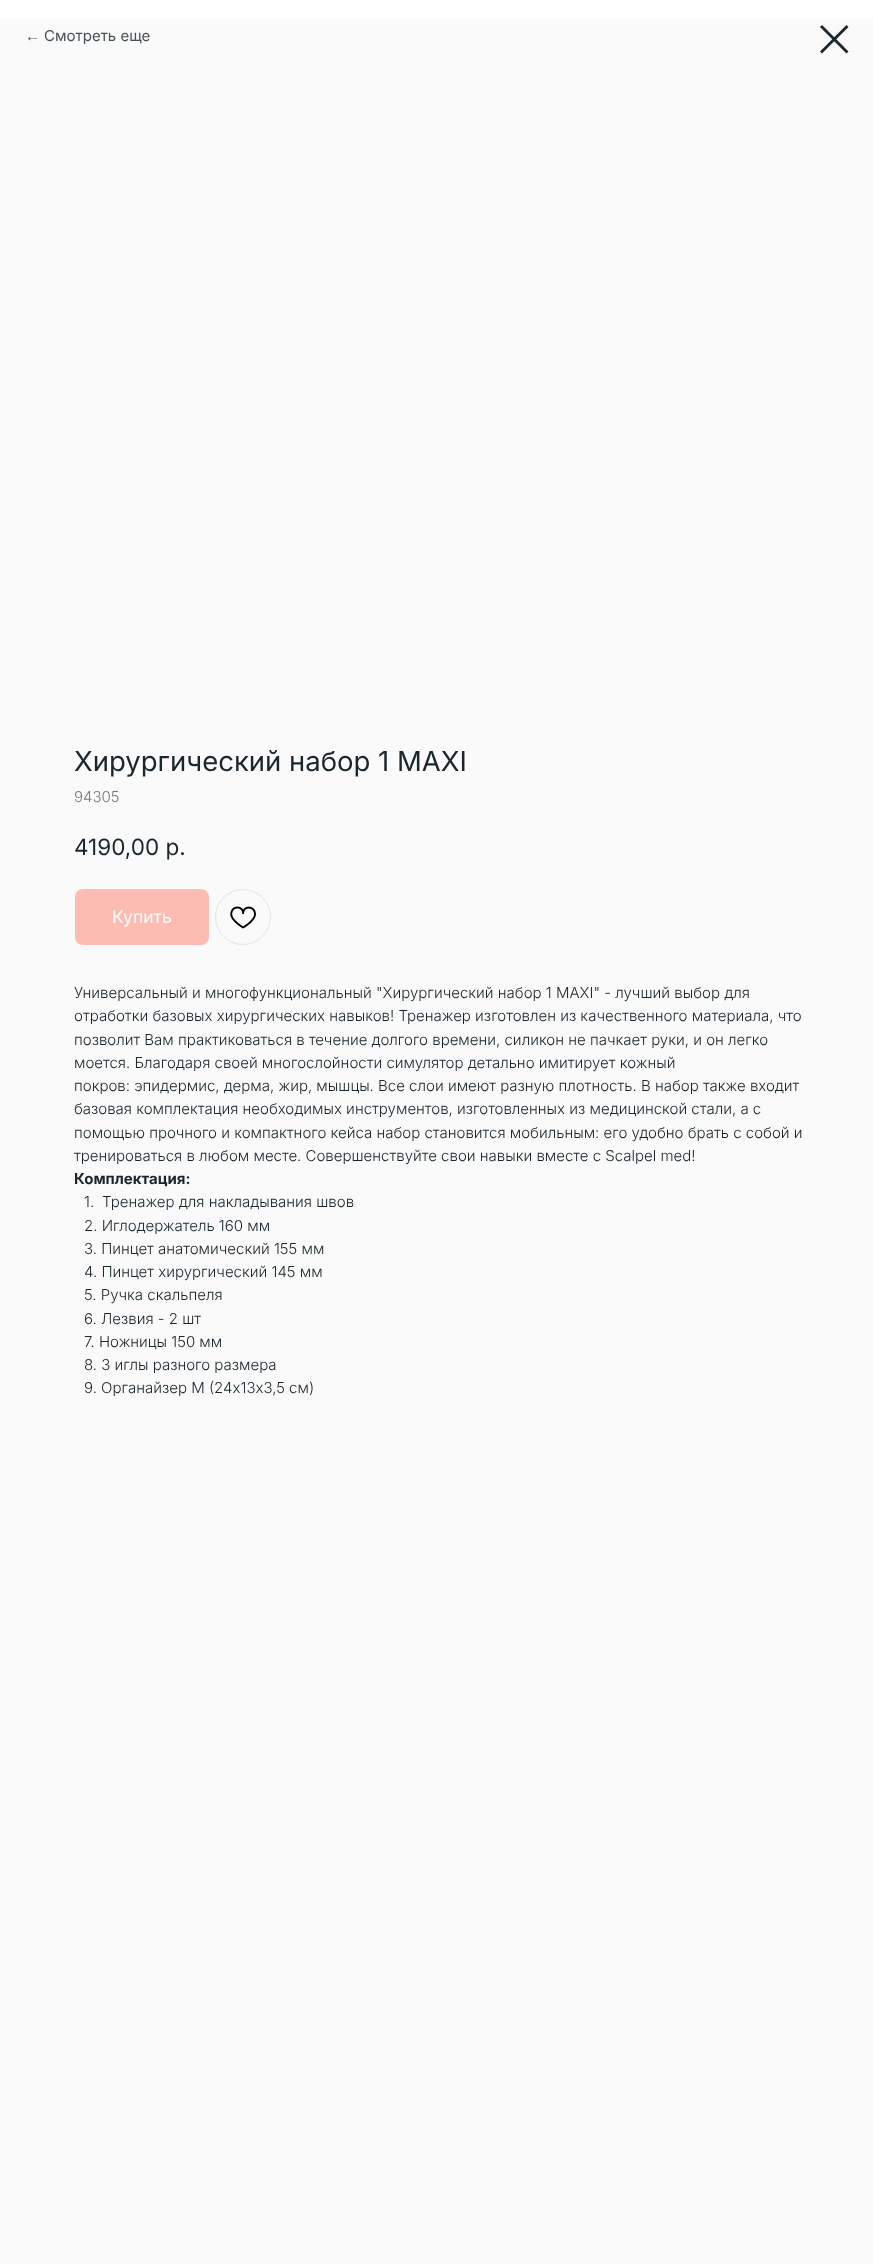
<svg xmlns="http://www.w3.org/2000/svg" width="873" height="2264">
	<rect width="100%" height="100%" fill="#FAFAFA" />
	<rect x="0" y="0" width="873" height="19" fill="#FFFFFF" />
	<text x="25" y="41" font-family="Liberation Sans" font-size="15" fill="#485055">←</text>
	<text x="44" y="41" font-family="Inter" font-size="15" fill="#485055">Смотреть еще</text>
	<path d="M820 27L822 25L848.5 51.5L846.5 53.5Z" fill="#1B262C" fill-rule="evenodd" />
	<path d="M846.5 25L848.5 27L822 53.5L820 51.5Z" fill="#1B262C" fill-rule="evenodd" />
	<text x="74" y="771" font-family="Inter" font-size="27.5" fill="#1B262C">Хирургический набор 1 MAXI</text>
	<text x="74" y="802" font-family="Inter" font-size="15" font-weight="300" fill="#777777">94305</text>
	<text x="74" y="855" font-family="Inter" font-size="22.5" fill="#1B262C">4190,00 р.</text>
	<rect x="75" y="889" width="134" height="56" rx="8" fill="#FDBCB1" />
	<text x="112" y="923" font-family="Inter" font-size="17.5" fill="#FCFCFC">Купить</text>
	<circle cx="243" cy="917" r="27.5" fill="none" stroke="#E4E4E4" />
	<image x="230" y="906" width="26" height="23" href="assets/img1.png" />
	<g font-family="Inter" font-size="15" font-weight="300" fill="#1B262C">
		<text x="74" y="998">Универсальный и многофункциональный "Хирургический набор 1 MAXI" - лучший выбор для</text>
		<text x="74" y="1021">отработки базовых хирургических навыков! Тренажер изготовлен из качественного материала, что</text>
		<text x="74" y="1045">позволит Вам практиковаться в течение долгого времени, силикон не пачкает руки, и он легко</text>
		<text x="74" y="1068">моется. Благодаря своей многослойности симулятор детально имитирует кожный</text>
		<text x="74" y="1091">покров: эпидермис, дерма, жир, мышцы. Все слои имеют разную плотность. В набор также входит</text>
		<text x="74" y="1114">базовая комплектация необходимых инструментов, изготовленных из медицинской стали, а с</text>
		<text x="74" y="1138">помощью прочного и компактного кейса набор становится мобильным: его удобно брать с собой и</text>
		<text x="74" y="1161">тренироваться в любом месте. Совершенствуйте свои навыки вместе с Scalpel med!</text>
	</g>
	<text x="74" y="1184" font-family="Inter" font-size="15" font-weight="700" fill="#1B262C">Комплектация:</text>
	<g font-family="Inter" font-size="15" font-weight="300" fill="#1B262C">
		<text x="84" y="1207">1.</text>
		<text x="102" y="1207">Тренажер для накладывания швов</text>
		<text x="84" y="1231">2. Иглодержатель 160 мм</text>
		<text x="84" y="1254">3. Пинцет анатомический 155 мм</text>
		<text x="84" y="1277">4. Пинцет хирургический 145 мм</text>
		<text x="84" y="1300">5. Ручка скальпеля</text>
		<text x="84" y="1324">6. Лезвия - 2 шт</text>
		<text x="84" y="1347">7. Ножницы 150 мм</text>
		<text x="84" y="1370">8. 3 иглы разного размера</text>
		<text x="84" y="1393">9. Органайзер M (24х13х3,5 см)</text>
	</g>
</svg>
